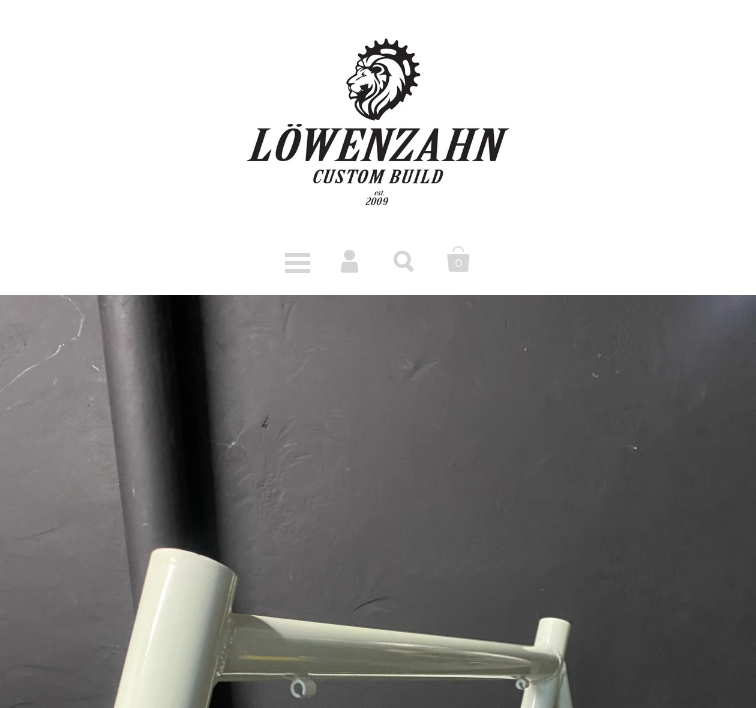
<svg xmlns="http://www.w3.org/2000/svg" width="756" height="708">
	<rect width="100%" height="100%" fill="#FFFFFF" />
	<image x="246" y="37" width="264" height="169" href="assets/img1.png" />
	<rect x="285" y="253" width="25" height="4" fill="#D6D5D5" />
	<rect x="285" y="261" width="25" height="4" fill="#D6D5D5" />
	<rect x="285" y="269" width="25" height="4" fill="#D6D5D5" />
	<image x="340" y="250" width="19" height="23" href="assets/img2.png" />
	<image x="393" y="250" width="21" height="22" href="assets/img3.png" />
	<image x="447" y="246" width="23" height="26" href="assets/img4.png" />
	<text x="455" y="267" font-family="Montserrat" font-size="11" fill="#FFFFFF">0</text>
	<image x="0" y="295" width="756" height="413" href="assets/img5.png" />
</svg>
